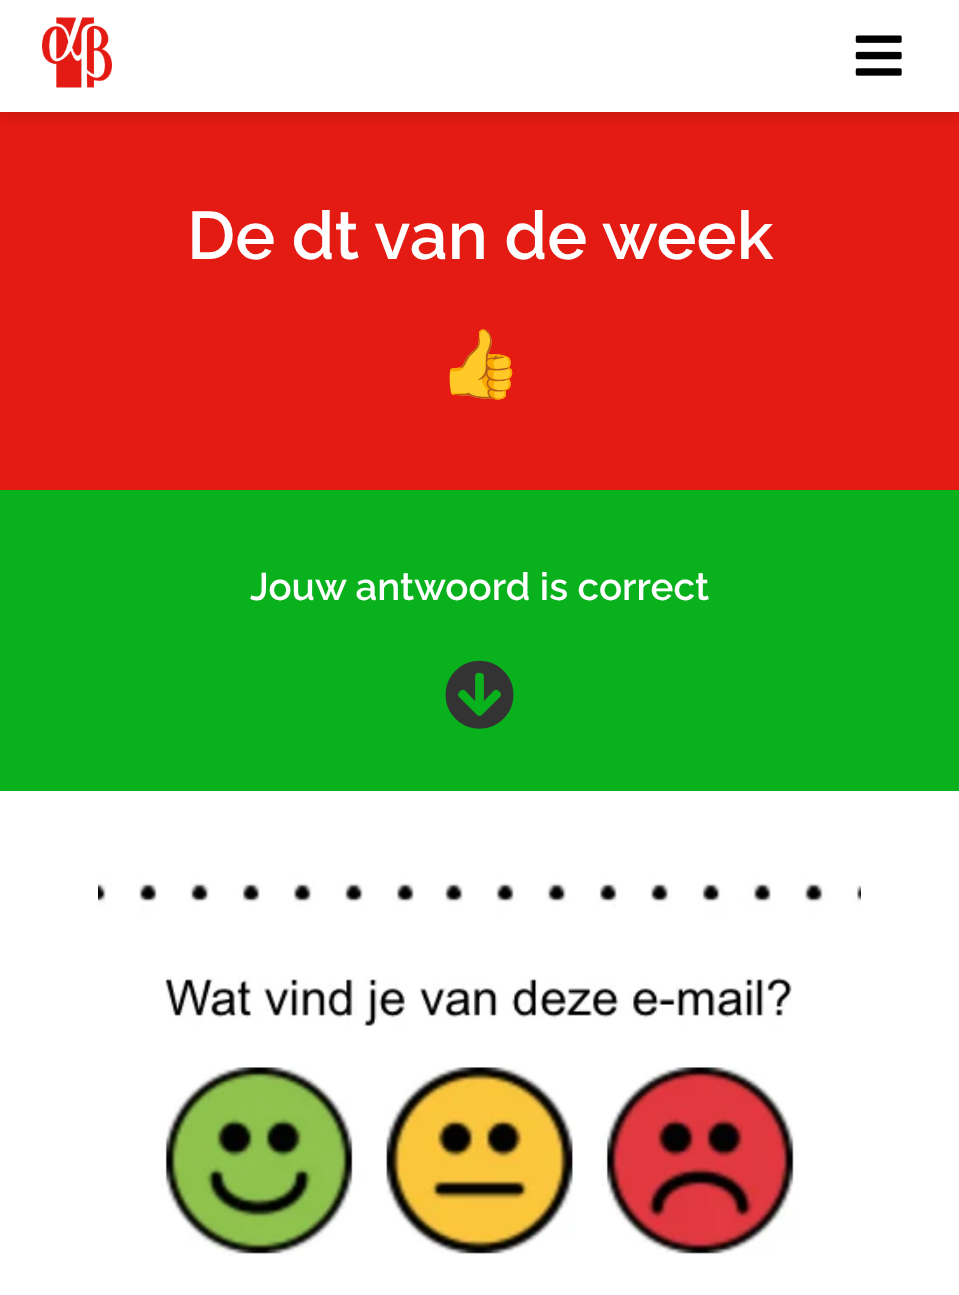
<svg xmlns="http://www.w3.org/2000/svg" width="959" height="1295">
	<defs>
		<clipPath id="clip1"><rect x="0" y="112" width="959" height="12" /></clipPath>
	</defs>
	<rect width="100%" height="100%" fill="#FFFFFF" />
	<rect x="0" y="112" width="959" height="378" fill="#E41B13" />
	<g clip-path="url(#clip1)">
		<rect x="0" y="0" width="959" height="112" fill="#000000" fill-opacity="0.2" filter="blur(9px)" />
	</g>
	<image x="42" y="17" width="70" height="71" href="assets/img1.png" />
	<image x="855" y="35" width="47" height="41" href="assets/img2.png" />
	<text x="187" y="259" font-family="Raleway" font-size="67.25" font-weight="600" fill="#FFFFFF">De dt van de week</text>
	<text x="438" y="387" font-family="Noto Color Emoji" font-size="67.25" font-weight="700" fill="#FFFFFF">👍</text>
	<rect x="0" y="490" width="959" height="301" fill="#09B21D" />
	<text x="250" y="600" font-family="Raleway" font-size="38.5" font-weight="600" fill="#FFFFFF">Jouw antwoord is correct</text>
	<image x="445" y="660" width="69" height="69" href="assets/img3.png" />
	<image x="98" y="879" width="763" height="377" href="assets/img4.png" />
</svg>
